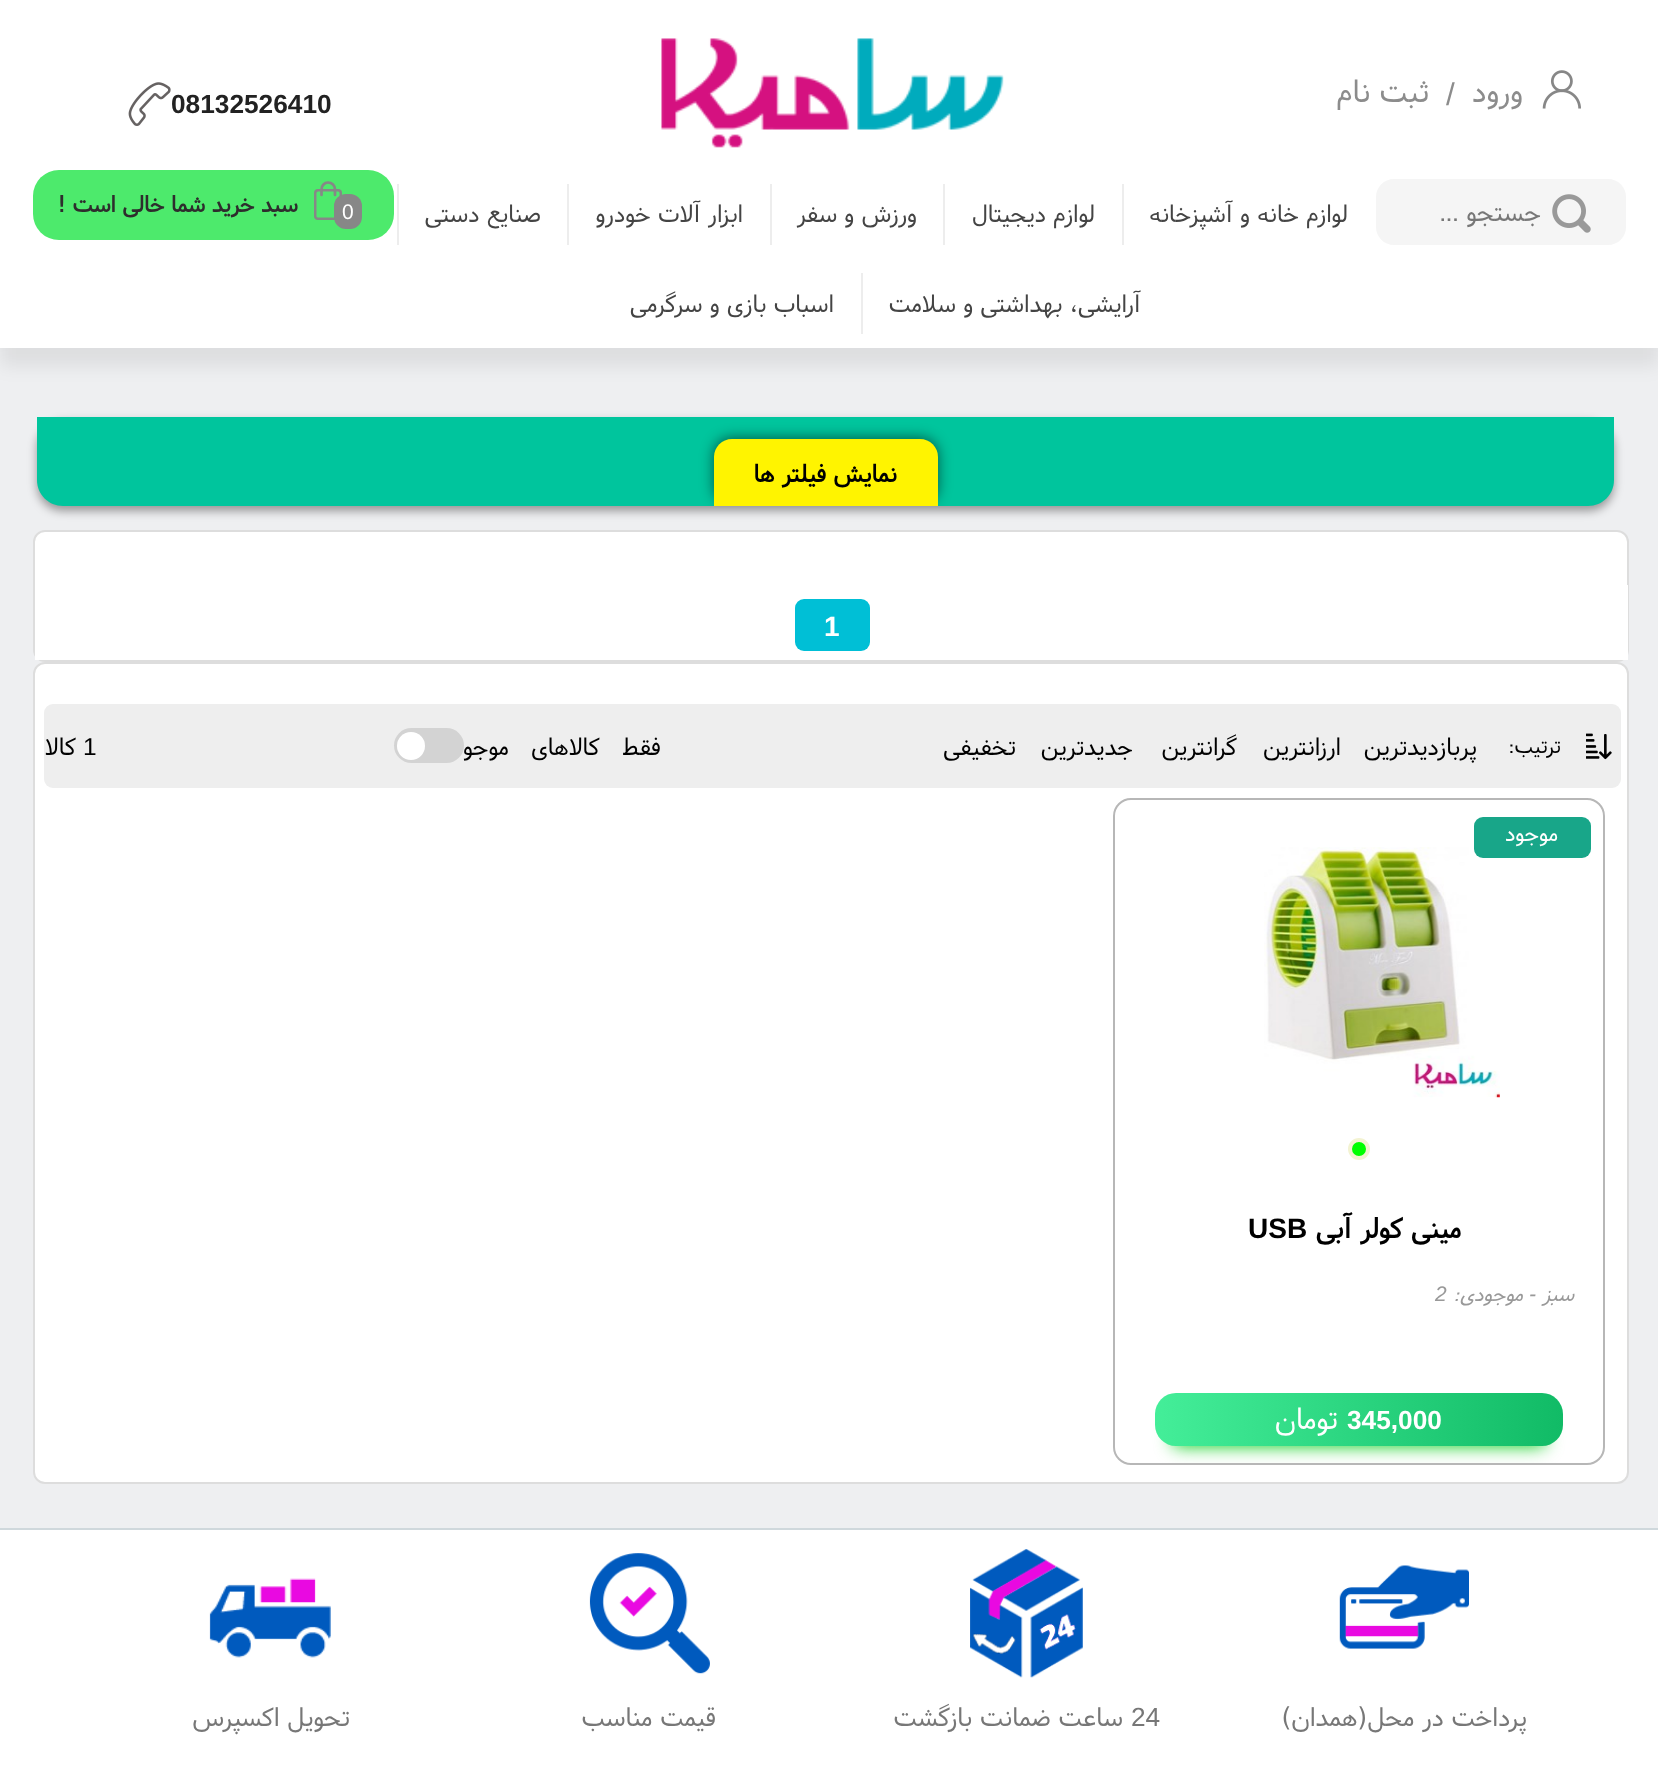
<svg xmlns="http://www.w3.org/2000/svg" width="1658" height="1772">
	<defs>
		<clipPath id="clip1"><path d="M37 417H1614V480C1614 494.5 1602.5 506 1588 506H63C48.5 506 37 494.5 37 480Z" /></clipPath>
		<clipPath id="clip2"><rect x="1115" y="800" width="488" height="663" rx="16" /></clipPath>
		<linearGradient id="g1" gradientUnits="userSpaceOnUse" x1="1155" y1="1419" x2="1563" y2="1419"><stop offset="0" stop-color="#44EE99" /><stop offset="1" stop-color="#11BB66" /></linearGradient>
	</defs>
	<rect width="100%" height="100%" fill="#EEEFF1" />
	<rect x="0" y="18" width="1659" height="348" fill="#000000" fill-opacity="0.07" filter="blur(9px)" />
	<rect x="0" y="0" width="1658" height="348" fill="#FFFFFF" />
	<image x="1542" y="70" width="39" height="39" href="assets/img1.png" />
	<text x="1523" y="102" font-family="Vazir" font-size="31.5" direction="rtl" fill="#8C8C8C">ورود</text>
	<text x="1446" y="105" font-family="Liberation Sans" font-size="31.5" fill="#8C8C8C">/</text>
	<text x="1429" y="102" font-family="Vazir" font-size="31.5" direction="rtl" fill="#8C8C8C">ثبت نام</text>
	<image x="661" y="38" width="343" height="110" href="assets/img2.png" />
	<text x="171" y="113" font-family="Liberation Sans" font-size="26.25" font-weight="700" fill="#222222">08132526410</text>
	<image x="128" y="82" width="43" height="44" href="assets/img3.png" />
	<path d="M1394 179H1549V245H1394C1384 245 1376 237 1376 227V197C1376 187 1384 179 1394 179Z" fill="#F5F5F5" />
	<path d="M1540 179H1608C1618 179 1626 187 1626 197V227C1626 237 1618 245 1608 245H1540Z" fill="#F5F5F5" />
	<image x="1552" y="194" width="39" height="39" href="assets/img4.png" />
	<text x="1541" y="221" font-family="Vazir" font-size="26.25" direction="rtl" fill="#777777">جستجو ...</text>
	<rect x="1122" y="184" width="2" height="61" fill="#EDEDED" />
	<text x="1348" y="222" font-family="Vazir" font-size="24.5" direction="rtl" fill="#444444">لوازم خانه و آشپزخانه</text>
	<rect x="943" y="184" width="2" height="61" fill="#EDEDED" />
	<text x="1095" y="222" font-family="Vazir" font-size="24.5" direction="rtl" fill="#444444">لوازم دیجیتال</text>
	<rect x="770" y="184" width="2" height="61" fill="#EDEDED" />
	<text x="917" y="222" font-family="Vazir" font-size="24.5" direction="rtl" fill="#444444">ورزش و سفر</text>
	<rect x="567" y="184" width="2" height="61" fill="#EDEDED" />
	<text x="743" y="222" font-family="Vazir" font-size="24.5" direction="rtl" fill="#444444">ابزار آلات خودرو</text>
	<rect x="397" y="184" width="2" height="61" fill="#EDEDED" />
	<text x="541" y="222" font-family="Vazir" font-size="24.5" direction="rtl" fill="#444444">صنایع دستی</text>
	<rect x="861" y="273" width="2" height="61" fill="#EDEDED" />
	<g font-family="Vazir" font-size="24.5" direction="rtl" fill="#444444">
		<text x="1141" y="312">آرایشی، بهداشتی و سلامت</text>
		<text x="834" y="312">اسباب بازی و سرگرمی</text>
	</g>
	<rect x="33" y="170" width="361" height="70" rx="26" fill="#4DEA6C" />
	<rect x="315.25" y="190.25" width="25.5" height="28.5" rx="2.75" fill="none" stroke="#878787" stroke-width="2.5" />
	<path d="M335 195V189.5C335 185.5 332 182.5 328 182.5C324.5 182.5 321.5 185.5 321.5 189.5V195" fill="none" stroke="#878787" stroke-width="2.7" stroke-linecap="round" stroke-linejoin="round" />
	<rect x="334" y="194" width="28" height="35" rx="12" fill="#878787" />
	<text x="342" y="219" font-family="Liberation Sans" font-size="21" fill="#FFFFFF">0</text>
	<text x="298" y="212" font-family="Vazir" font-size="22.75" font-weight="700" direction="rtl" fill="#2E2D2D">سبد خرید شما خالی است !</text>
	<rect x="37" y="422" width="1577" height="89" rx="26" fill="#000000" fill-opacity="0.37" filter="blur(5px)" />
	<path d="M37 417H1614V480C1614 494.5 1602.5 506 1588 506H63C48.5 506 37 494.5 37 480Z" fill="#00C59D" />
	<g clip-path="url(#clip1)">
		<rect x="714" y="438" width="224" height="66" rx="18" fill="#000000" fill-opacity="0.55" filter="blur(7px)" />
	</g>
	<path d="M732 439H920C930 439 938 447 938 457V506H714V457C714 447 722 439 732 439Z" fill="#FFF400" />
	<text x="897" y="482" font-family="Vazir" font-size="24.5" font-weight="700" direction="rtl" fill="#000000">نمایش فیلتر ها</text>
	<rect x="34" y="531" width="1594" height="130" rx="11" fill="#FFFFFF" stroke="#DDDDDD" stroke-width="2" />
	<rect x="35" y="585" width="1593" height="75" fill="#FFFFFF" />
	<rect x="795" y="599" width="75" height="52" rx="9" fill="#00BFD6" />
	<text x="824" y="636" font-family="Liberation Sans" font-size="28" font-weight="700" fill="#FFFFFF">1</text>
	<rect x="34" y="663" width="1594" height="820" rx="11" fill="#FFFFFF" stroke="#DDDDDD" stroke-width="2" />
	<rect x="44" y="704" width="1577" height="84" rx="9" fill="#EEEEEE" />
	<image x="1586" y="733" width="26" height="27" href="assets/img5.png" />
	<text x="1561" y="753" font-family="Vazir" font-size="21" letter-spacing="-1.75" direction="rtl" fill="#000000">ترتیب:</text>
	<g font-family="Vazir" font-size="24.5" letter-spacing="-1.75" direction="rtl" fill="#000000">
		<text x="1477" y="755">پربازدیدترین</text>
		<text x="1341" y="755">ارزانترین</text>
		<text x="1237" y="755">گرانترین</text>
		<text x="1133" y="755">جدیدترین</text>
		<text x="1016" y="755">تخفیفی</text>
		<text x="661" y="755" word-spacing="15">فقط کالاهای موجود</text>
	</g>
	<rect x="394" y="728" width="70" height="35" rx="17.5" fill="#D3D3D3" />
	<circle cx="411" cy="746" r="14" fill="#FFFFFF" />
	<text x="83" y="755" font-family="Liberation Sans" font-size="24.5" letter-spacing="-1.75" fill="#000000">1</text>
	<text x="76" y="755" font-family="Vazir" font-size="24.5" letter-spacing="-1.75" direction="rtl" fill="#000000">کالا</text>
	<rect x="1114" y="799" width="490" height="665" rx="17" fill="none" stroke="#B7B7B7" stroke-width="2" />
	<image x="1264" y="847" width="236" height="251" href="assets/img6.png" />
	<rect x="1474" y="817" width="117" height="41" rx="9" fill="#18A689" />
	<text x="1558" y="841" font-family="Vazir" font-size="22.75" direction="rtl" fill="#FFFFFF">موجود</text>
	<g clip-path="url(#clip2)">
		<rect x="1173" y="1428" width="372" height="18" rx="4" fill="#00CC11" filter="blur(9px)" />
	</g>
	<rect x="1155" y="1393" width="408" height="53" rx="21" fill="url(#g1)" />
	<text x="1347" y="1429" font-family="Liberation Sans" font-size="26.25" font-weight="700" fill="#FFFFFF">345,000</text>
	<text x="1338" y="1429" font-family="Vazir" font-size="30" direction="rtl" fill="#FFFFFF">تومان</text>
	<circle cx="1359" cy="1149" r="9" fill="#00FF00" stroke="#F3F3D2" stroke-width="4" />
	<text x="1461" y="1238" font-family="Vazir" font-size="28" font-weight="700" direction="rtl" fill="#000000">مینی کولر آبی</text>
	<text x="1248" y="1238" font-family="Liberation Sans" font-size="28" font-weight="700" fill="#000000">USB</text>
	<text x="1574" y="1301" font-family="Vazir" font-size="21" font-style="italic" direction="rtl" fill="#999999">سبز</text>
	<text x="1529" y="1301" font-family="Liberation Sans" font-size="21" font-style="italic" fill="#999999">-</text>
	<text x="1523" y="1301" font-family="Vazir" font-size="21" font-style="italic" direction="rtl" fill="#999999">موجودی:</text>
	<text x="1435" y="1301" font-family="Liberation Sans" font-size="21" font-style="italic" fill="#999999">2</text>
	<rect x="0" y="1530" width="1658" height="242" fill="#FFFFFF" />
	<rect x="0" y="1528" width="1658" height="2" fill="#CFD8DC" />
	<image x="1339" y="1565" width="130" height="84" href="assets/img7.png" />
	<text x="1527" y="1726" font-family="Vazir" font-size="26.25" direction="rtl" fill="#777777">پرداخت در محل(همدان)</text>
	<image x="970" y="1549" width="113" height="129" href="assets/img8.png" />
	<text x="1131" y="1726" font-family="Liberation Sans" font-size="26.25" fill="#777777">24</text>
	<text x="1123" y="1726" font-family="Vazir" font-size="26.25" direction="rtl" fill="#777777">ساعت ضمانت بازگشت</text>
	<image x="589" y="1553" width="121" height="121" href="assets/img9.png" />
	<text x="716" y="1726" font-family="Vazir" font-size="26.25" direction="rtl" fill="#777777">قیمت مناسب</text>
	<image x="209" y="1578" width="122" height="80" href="assets/img10.png" />
	<text x="350" y="1726" font-family="Vazir" font-size="26.25" direction="rtl" fill="#777777">تحویل اکسپرس</text>
</svg>
